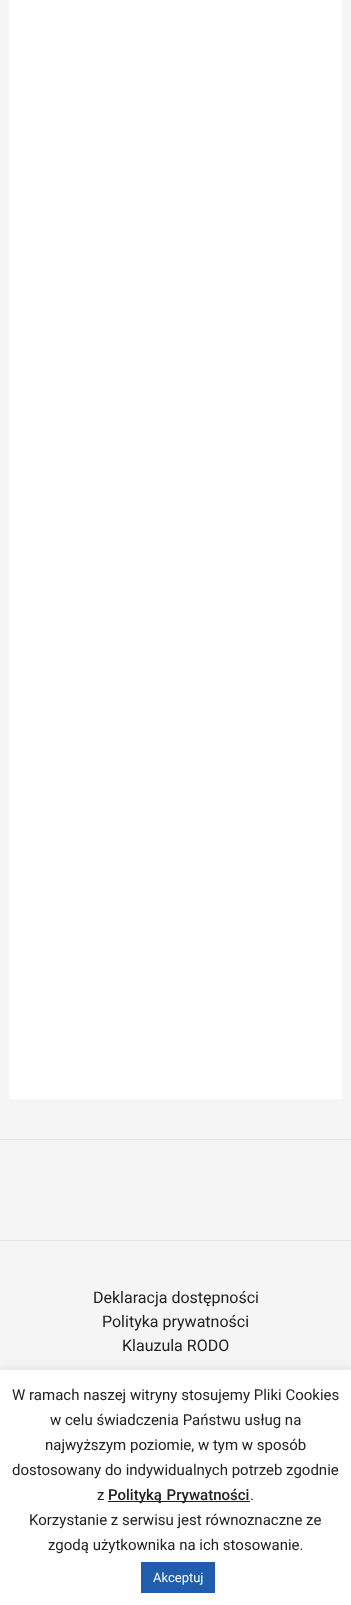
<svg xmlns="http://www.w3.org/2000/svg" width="351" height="1605">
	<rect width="100%" height="100%" fill="#F5F5F5" />
	<rect x="9" y="0" width="333" height="1099" fill="#FFFFFF" />
	<rect x="0" y="1139" width="351" height="1" fill="#E5E5E5" />
	<rect x="0" y="1240" width="351" height="1" fill="#E5E5E5" />
	<g font-family="Roboto" font-size="16" fill="#222222">
		<text x="93" y="1303">Deklaracja dostępności</text>
		<text x="102" y="1327">Polityka prywatności</text>
		<text x="122" y="1351">Klauzula RODO</text>
	</g>
	<rect x="0" y="1369" width="351" height="235" fill="#ACABAB" fill-opacity="0.3" filter="blur(5px)" />
	<rect x="0" y="1370" width="351" height="235" fill="#FFFFFF" />
	<g font-family="Roboto" font-size="15" fill="#222222">
		<text x="12" y="1400">W ramach naszej witryny stosujemy Pliki Cookies</text>
		<text x="50" y="1425">w celu świadczenia Państwu usług na</text>
		<text x="45" y="1450">najwyższym poziomie, w tym w sposób</text>
		<text x="12" y="1475">dostosowany do indywidualnych potrzeb zgodnie</text>
		<text x="97" y="1500">z</text>
	</g>
	<rect x="108" y="1501" width="142" height="1" fill="#222222" />
	<text x="108" y="1500" word-spacing="1" font-family="Roboto" font-size="15" font-weight="500" fill="#222222">Polityką Prywatności</text>
	<g font-family="Roboto" font-size="15" fill="#222222">
		<text x="250" y="1500">.</text>
		<text x="29" y="1525">Korzystanie z serwisu jest równoznaczne ze</text>
		<text x="48" y="1550">zgodą użytkownika na ich stosowanie.</text>
	</g>
	<rect x="141" y="1562" width="74" height="31" fill="#205EAD" />
	<text x="153" y="1582" font-family="Roboto" font-size="13" fill="#FFFFFF">Akceptuj</text>
</svg>
